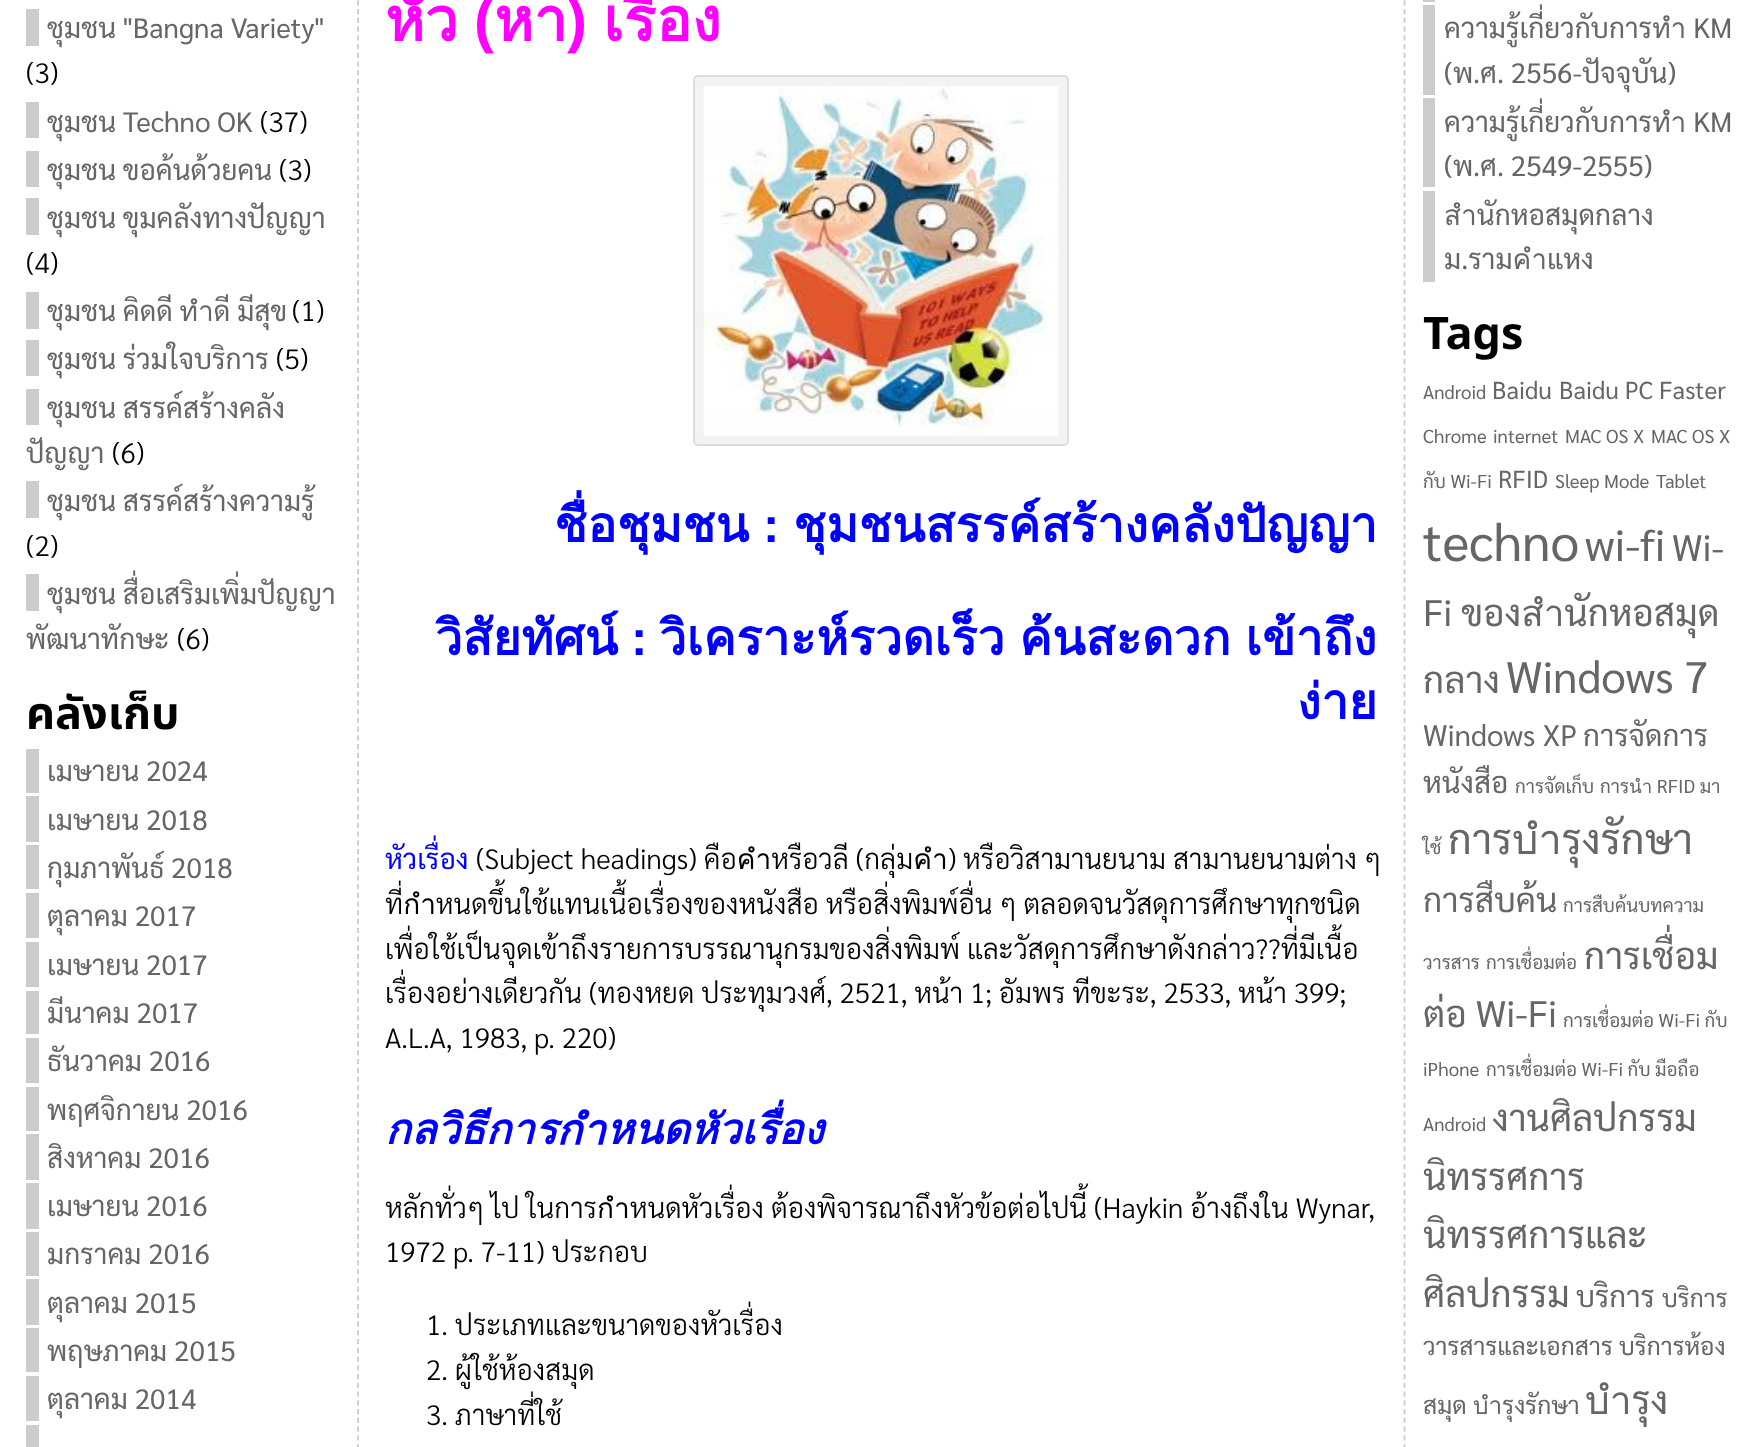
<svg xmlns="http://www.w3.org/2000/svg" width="1761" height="1447">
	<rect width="100%" height="100%" fill="#FFFFFF" />
	<path d="M358-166V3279.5" fill="none" stroke="#CCCCCC" stroke-width="1.8" stroke-dasharray="5.25 3.5" />
	<text x="47" y="38" font-family="Sarabun" font-size="28" fill="#666666">ชุมชน "Bangna Variety"</text>
	<rect x="26" y="9" width="13" height="37" fill="#CCCCCC" />
	<text x="26" y="83" font-family="Sarabun" font-size="28" font-weight="300" fill="#000000">(3)</text>
	<text x="47" y="132" font-family="Sarabun" font-size="28" fill="#666666">ชุมชน Techno OK</text>
	<rect x="26" y="102" width="13" height="36" fill="#CCCCCC" />
	<text x="260" y="132" font-family="Sarabun" font-size="28" font-weight="300" fill="#000000">(37)</text>
	<text x="47" y="180" font-family="Sarabun" font-size="28" fill="#666666">ชุมชน ขอค้นด้วยคน</text>
	<rect x="26" y="151" width="13" height="36" fill="#CCCCCC" />
	<text x="279" y="180" font-family="Sarabun" font-size="28" font-weight="300" fill="#000000">(3)</text>
	<text x="47" y="228" font-family="Sarabun" font-size="28" fill="#666666">ชุมชน ขุมคลังทางปัญญา</text>
	<rect x="26" y="198" width="13" height="37" fill="#CCCCCC" />
	<text x="26" y="273" font-family="Sarabun" font-size="28" font-weight="300" fill="#000000">(4)</text>
	<text x="47" y="321" font-family="Sarabun" font-size="28" fill="#666666">ชุมชน คิดดี ทำดี มีสุข</text>
	<rect x="26" y="292" width="13" height="37" fill="#CCCCCC" />
	<text x="292" y="321" font-family="Sarabun" font-size="28" font-weight="300" fill="#000000">(1)</text>
	<text x="47" y="369" font-family="Sarabun" font-size="28" fill="#666666">ชุมชน ร่วมใจบริการ</text>
	<rect x="26" y="340" width="13" height="36" fill="#CCCCCC" />
	<text x="276" y="369" font-family="Sarabun" font-size="28" font-weight="300" fill="#000000">(5)</text>
	<text x="47" y="418" font-family="Sarabun" font-size="28" fill="#666666">ชุมชน สรรค์สร้างคลัง</text>
	<rect x="26" y="389" width="13" height="36" fill="#CCCCCC" />
	<text x="26" y="463" font-family="Sarabun" font-size="28" fill="#666666">ปัญญา</text>
	<text x="112" y="463" font-family="Sarabun" font-size="28" font-weight="300" fill="#000000">(6)</text>
	<text x="47" y="511" font-family="Sarabun" font-size="28" fill="#666666">ชุมชน สรรค์สร้างความรู้</text>
	<rect x="26" y="481" width="13" height="37" fill="#CCCCCC" />
	<text x="26" y="556" font-family="Sarabun" font-size="28" font-weight="300" fill="#000000">(2)</text>
	<text x="47" y="604" font-family="Sarabun" font-size="28" fill="#666666">ชุมชน สื่อเสริมเพิ่มปัญญา</text>
	<rect x="26" y="574" width="13" height="37" fill="#CCCCCC" />
	<text x="26" y="649" font-family="Sarabun" font-size="28" fill="#666666">พัฒนาทักษะ</text>
	<text x="177" y="649" font-family="Sarabun" font-size="28" font-weight="300" fill="#000000">(6)</text>
	<text x="26" y="729" font-family="Noto Sans Thai" font-size="45" font-weight="700" fill="#000000">คลังเก็บ</text>
	<rect x="26" y="749" width="13" height="44" fill="#CCCCCC" />
	<text x="47" y="781" font-family="Sarabun" font-size="28" fill="#666666">เมษายน 2024</text>
	<rect x="26" y="796" width="13" height="46" fill="#CCCCCC" />
	<text x="47" y="830" font-family="Sarabun" font-size="28" fill="#666666">เมษายน 2018</text>
	<rect x="26" y="845" width="13" height="44" fill="#CCCCCC" />
	<text x="47" y="878" font-family="Sarabun" font-size="28" fill="#666666">กุมภาพันธ์ 2018</text>
	<rect x="26" y="893" width="13" height="45" fill="#CCCCCC" />
	<text x="47" y="926" font-family="Sarabun" font-size="28" fill="#666666">ตุลาคม 2017</text>
	<rect x="26" y="942" width="13" height="45" fill="#CCCCCC" />
	<text x="47" y="975" font-family="Sarabun" font-size="28" fill="#666666">เมษายน 2017</text>
	<rect x="26" y="991" width="13" height="43" fill="#CCCCCC" />
	<text x="47" y="1023" font-family="Sarabun" font-size="28" fill="#666666">มีนาคม 2017</text>
	<rect x="26" y="1038" width="13" height="45" fill="#CCCCCC" />
	<text x="47" y="1071" font-family="Sarabun" font-size="28" fill="#666666">ธันวาคม 2016</text>
	<rect x="26" y="1087" width="13" height="44" fill="#CCCCCC" />
	<text x="47" y="1120" font-family="Sarabun" font-size="28" fill="#666666">พฤศจิกายน 2016</text>
	<rect x="26" y="1134" width="13" height="46" fill="#CCCCCC" />
	<text x="47" y="1168" font-family="Sarabun" font-size="28" fill="#666666">สิงหาคม 2016</text>
	<rect x="26" y="1183" width="13" height="46" fill="#CCCCCC" />
	<text x="47" y="1216" font-family="Sarabun" font-size="28" fill="#666666">เมษายน 2016</text>
	<rect x="26" y="1232" width="13" height="44" fill="#CCCCCC" />
	<text x="47" y="1264" font-family="Sarabun" font-size="28" fill="#666666">มกราคม 2016</text>
	<rect x="26" y="1279" width="13" height="46" fill="#CCCCCC" />
	<text x="47" y="1313" font-family="Sarabun" font-size="28" fill="#666666">ตุลาคม 2015</text>
	<rect x="26" y="1328" width="13" height="44" fill="#CCCCCC" />
	<text x="47" y="1361" font-family="Sarabun" font-size="28" fill="#666666">พฤษภาคม 2015</text>
	<rect x="26" y="1376" width="13" height="45" fill="#CCCCCC" />
	<text x="47" y="1409" font-family="Sarabun" font-size="28" fill="#666666">ตุลาคม 2014</text>
	<rect x="26" y="1425" width="13" height="22" fill="#CCCCCC" />
	<text x="385" y="41" font-family="Loma" font-size="60" font-weight="700" fill="#FF00FF">หัว</text>
	<text x="474" y="41" font-family="Liberation Sans" font-size="60" font-weight="700" fill="#FF00FF">(</text>
	<text x="494" y="41" font-family="Loma" font-size="60" font-weight="700" fill="#FF00FF">หา</text>
	<text x="567" y="41" font-family="Liberation Sans" font-size="60" font-weight="700" fill="#FF00FF">)</text>
	<text x="603" y="41" font-family="Loma" font-size="60" font-weight="700" fill="#FF00FF">เรื่อง</text>
	<rect x="694" y="76" width="374" height="369" rx="4" fill="#F3F3F3" stroke="#DDDDDD" stroke-width="2" />
	<image x="703" y="86" width="356" height="350" href="assets/img1.png" />
	<text x="554" y="542" font-family="Loma" font-size="49" font-weight="700" fill="#0000FF">ชื่อชุมชน</text>
	<text x="763" y="542" font-family="Liberation Sans" font-size="49" font-weight="700" fill="#0000FF">:</text>
	<g font-family="Loma" font-size="49" font-weight="700" fill="#0000FF">
		<text x="793" y="542">ชุมชนสรรค์สร้างคลังปัญญา</text>
		<text x="435" y="655">วิสัยทัศน์</text>
	</g>
	<text x="631" y="655" font-family="Liberation Sans" font-size="49" font-weight="700" fill="#0000FF">:</text>
	<g font-family="Loma" font-size="49" font-weight="700" fill="#0000FF">
		<text x="659" y="655" word-spacing="-2">วิเคราะห์รวดเร็ว ค้นสะดวก เข้าถึง</text>
		<text x="1297" y="719">ง่าย</text>
	</g>
	<text x="385" y="869" font-family="Sarabun" font-size="28" fill="#0000FF">หัวเรื่อง</text>
	<g font-family="Sarabun" font-size="28" font-weight="300" fill="#000000">
		<text x="476" y="869">(Subject headings) คือคำหรือวลี (กลุ่มคำ) หรือวิสามานยนาม สามานยนามต่าง ๆ</text>
		<text x="385" y="914">ที่กำหนดขึ้นใช้แทนเนื้อเรื่องของหนังสือ หรือสิ่งพิมพ์อื่น ๆ ตลอดจนวัสดุการศึกษาทุกชนิด</text>
		<text x="385" y="959">เพื่อใช้เป็นจุดเข้าถึงรายการบรรณานุกรมของสิ่งพิมพ์ และวัสดุการศึกษาดังกล่าว??ที่มีเนื้อ</text>
		<text x="385" y="1003">เรื่องอย่างเดียวกัน (ทองหยด ประทุมวงศ์, 2521, หน้า 1; อัมพร ทีขะระ, 2533, หน้า 399;</text>
		<text x="385" y="1048">A.L.A, 1983, p. 220)</text>
	</g>
	<text x="385" y="1144" font-family="Loma" font-size="42" font-weight="700" font-style="italic" fill="#0000FF">กลวิธีการกำหนดหัวเรื่อง</text>
	<g font-family="Sarabun" font-size="28" font-weight="300" fill="#000000">
		<text x="385" y="1218">หลักทั่วๆ ไป ในการกำหนดหัวเรื่อง ต้องพิจารณาถึงหัวข้อต่อไปนี้ (Haykin อ้างถึงใน Wynar,</text>
		<text x="385" y="1262">1972 p. 7-11) ประกอบ</text>
		<text x="426" y="1335">1. ประเภทและขนาดของหัวเรื่อง</text>
		<text x="426" y="1380">2. ผู้ใช้ห้องสมุด</text>
		<text x="426" y="1425">3. ภาษาที่ใช้</text>
	</g>
	<path d="M1404.5-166V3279.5" fill="none" stroke="#CCCCCC" stroke-width="1.8" stroke-dasharray="5.25 3.5" />
	<rect x="1423" y="0" width="12" height="2" fill="#CCCCCC" />
	<rect x="1423" y="5" width="12" height="90" fill="#CCCCCC" />
	<g font-family="Sarabun" font-size="28" fill="#666666">
		<text x="1444" y="38">ความรู้เกี่ยวกับการทำ KM</text>
		<text x="1444" y="83">(พ.ศ. 2556-ปัจจุบัน)</text>
	</g>
	<rect x="1423" y="98" width="12" height="89" fill="#CCCCCC" />
	<g font-family="Sarabun" font-size="28" fill="#666666">
		<text x="1444" y="132">ความรู้เกี่ยวกับการทำ KM</text>
		<text x="1444" y="176">(พ.ศ. 2549-2555)</text>
	</g>
	<rect x="1423" y="191" width="12" height="91" fill="#CCCCCC" />
	<g font-family="Sarabun" font-size="28" fill="#666666">
		<text x="1444" y="225">สำนักหอสมุดกลาง</text>
		<text x="1444" y="269">ม.รามคำแหง</text>
	</g>
	<text x="1423" y="349" font-family="Noto Sans" font-size="45" font-weight="700" fill="#000000">Tags</text>
	<text x="1423" y="399" font-family="Sarabun" font-size="18.75" fill="#666666">Android</text>
	<g font-family="Sarabun" font-size="24.5" fill="#666666">
		<text x="1492" y="399">Baidu</text>
		<text x="1559" y="399">Baidu PC Faster</text>
	</g>
	<g font-family="Sarabun" font-size="18.75" fill="#666666">
		<text x="1423" y="443">Chrome</text>
		<text x="1493" y="443">internet</text>
		<text x="1565" y="443">MAC OS X</text>
		<text x="1651" y="443">MAC OS X</text>
		<text x="1423" y="488">กับ Wi-Fi</text>
	</g>
	<text x="1498" y="488" font-family="Sarabun" font-size="24.5" fill="#666666">RFID</text>
	<g font-family="Sarabun" font-size="18.75" fill="#666666">
		<text x="1555" y="488">Sleep Mode</text>
		<text x="1656" y="488">Tablet</text>
	</g>
	<text x="1423" y="561" font-family="Sarabun" font-size="51.5" fill="#666666">techno</text>
	<text x="1585" y="561" font-family="Sarabun" font-size="44" fill="#666666">wi-fi</text>
	<g font-family="Sarabun" font-size="36.75" fill="#666666">
		<text x="1672" y="561">Wi-</text>
		<text x="1423" y="626">Fi ของสำนักหอสมุด</text>
		<text x="1423" y="693">กลาง</text>
	</g>
	<text x="1506" y="693" font-family="Sarabun" font-size="44" fill="#666666">Windows 7</text>
	<g font-family="Sarabun" font-size="29.5" fill="#666666">
		<text x="1423" y="746">Windows XP</text>
		<text x="1583" y="746">การจัดการ</text>
		<text x="1423" y="793">หนังสือ</text>
	</g>
	<g font-family="Sarabun" font-size="18.75" fill="#666666">
		<text x="1515" y="793">การจัดเก็บ</text>
		<text x="1600" y="793">การนำ RFID มา</text>
		<text x="1423" y="854">ใช้</text>
	</g>
	<text x="1448" y="854" font-family="Sarabun" font-size="41.5" fill="#666666">การบำรุงรักษา</text>
	<text x="1423" y="912" font-family="Sarabun" font-size="33.5" fill="#666666">การสืบค้น</text>
	<g font-family="Sarabun" font-size="18.75" fill="#666666">
		<text x="1563" y="912">การสืบค้นบทความ</text>
		<text x="1423" y="969">วารสาร</text>
		<text x="1486" y="969">การเชื่อมต่อ</text>
	</g>
	<g font-family="Sarabun" font-size="36.75" fill="#666666">
		<text x="1584" y="969">การเชื่อม</text>
		<text x="1423" y="1027">ต่อ Wi-Fi</text>
	</g>
	<g font-family="Sarabun" font-size="18.75" fill="#666666">
		<text x="1563" y="1027">การเชื่อมต่อ Wi-Fi กับ</text>
		<text x="1423" y="1076">iPhone</text>
		<text x="1486" y="1076">การเชื่อมต่อ Wi-Fi กับ มือถือ</text>
		<text x="1423" y="1131">Android</text>
	</g>
	<g font-family="Sarabun" font-size="36.75" fill="#666666">
		<text x="1492" y="1131">งานศิลปกรรม</text>
		<text x="1423" y="1190">นิทรรศการ</text>
		<text x="1423" y="1248">นิทรรศการและ</text>
		<text x="1423" y="1307">ศิลปกรรม</text>
	</g>
	<text x="1576" y="1307" font-family="Sarabun" font-size="29.5" fill="#666666">บริการ</text>
	<g font-family="Sarabun" font-size="24.5" fill="#666666">
		<text x="1662" y="1307">บริการ</text>
		<text x="1423" y="1355">วารสารและเอกสาร</text>
		<text x="1619" y="1355">บริการห้อง</text>
		<text x="1423" y="1414">สมุด</text>
		<text x="1473" y="1414">บำรุงรักษา</text>
	</g>
	<text x="1585" y="1414" font-family="Sarabun" font-size="39" fill="#666666">บำรุง</text>
</svg>
